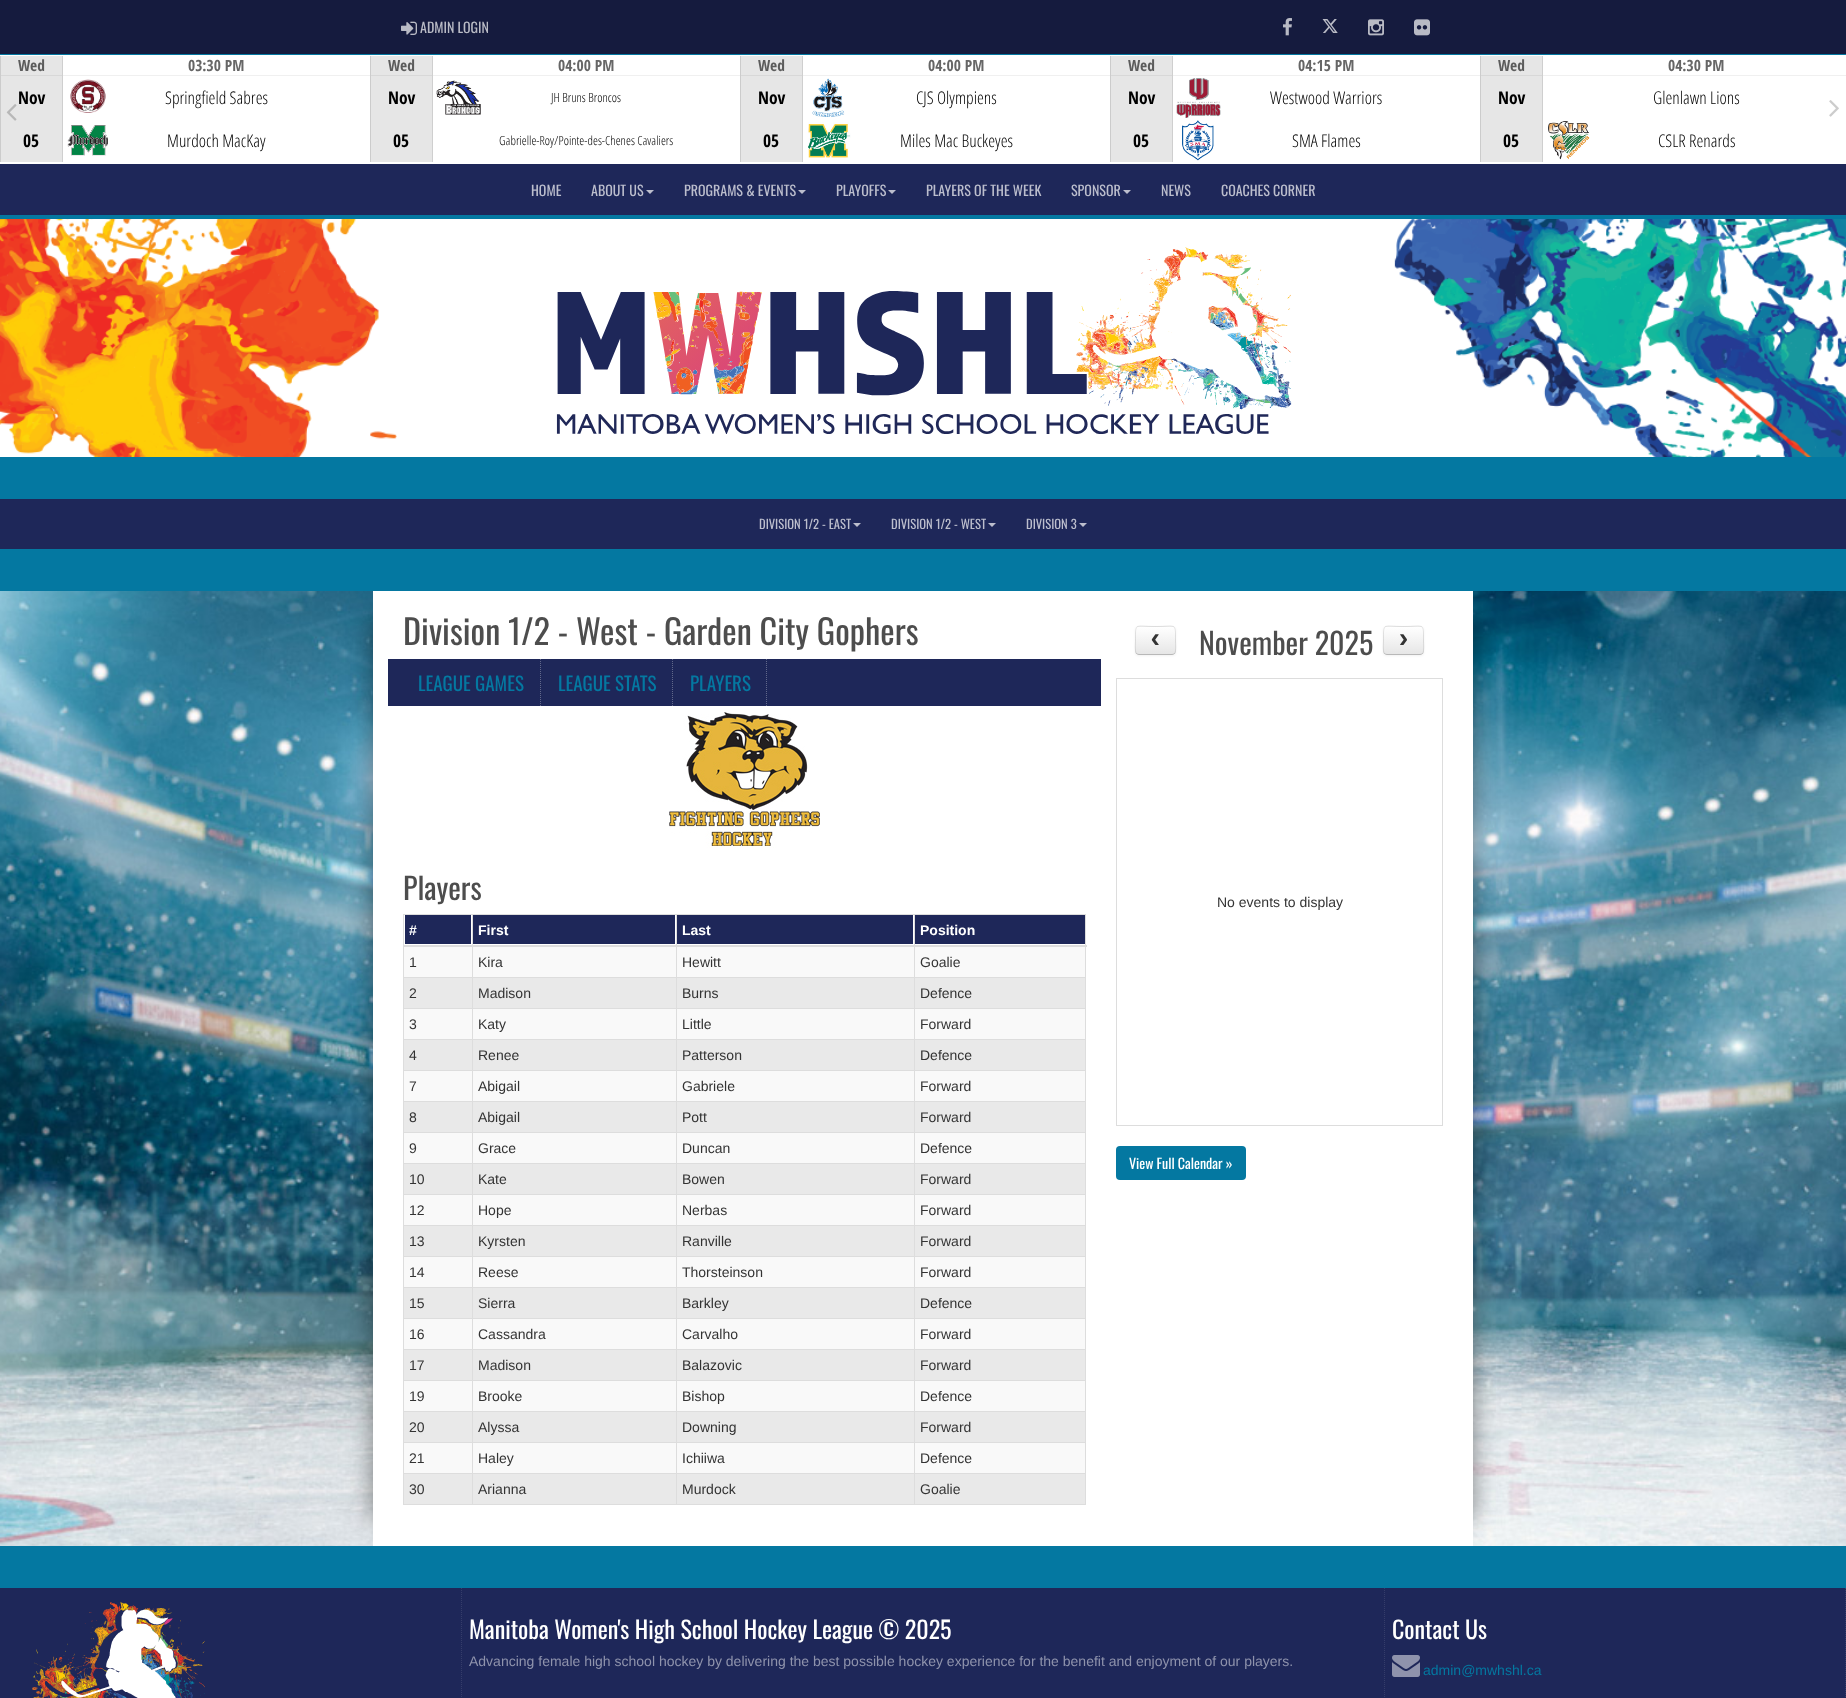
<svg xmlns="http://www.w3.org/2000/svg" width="1846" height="1698">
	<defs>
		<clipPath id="clip1"><rect x="1135" y="626" width="41" height="29" rx="4" /></clipPath>
		<linearGradient id="g1" gradientUnits="userSpaceOnUse" x1="1156" y1="627" x2="1156" y2="654"><stop offset="0" stop-color="#FFFFFF" /><stop offset="1" stop-color="#E6E6E6" /></linearGradient>
		<clipPath id="clip2"><rect x="1383" y="626" width="41" height="29" rx="4" /></clipPath>
		<linearGradient id="g2" gradientUnits="userSpaceOnUse" x1="1404" y1="627" x2="1404" y2="654"><stop offset="0" stop-color="#FFFFFF" /><stop offset="1" stop-color="#E6E6E6" /></linearGradient>
	</defs>
	<rect width="100%" height="100%" fill="#FFFFFF" />
	<rect x="0" y="54" width="1846" height="1" fill="#0478A1" />
	<rect x="0" y="0" width="1846" height="54" fill="#151B3E" />
	<image x="401" y="21" width="16" height="14" href="assets/img1.png" />
	<text x="420" y="33" font-family="Oswald" font-size="14" fill="#B9BBC5">ADMIN LOGIN</text>
	<image x="1283" y="18" width="9" height="18" href="assets/img2.png" />
	<image x="1322" y="19" width="16" height="14" href="assets/img3.png" />
	<image x="1368" y="19" width="16" height="17" href="assets/img4.png" />
	<image x="1414" y="19" width="16" height="17" href="assets/img5.png" />
	<rect x="0" y="164" width="1846" height="51" fill="#1E2759" />
	<rect x="1" y="56" width="61" height="106" fill="#E6E6E6" />
	<image x="6" y="104" width="11" height="17" href="assets/img6.png" />
	<rect x="0" y="56" width="1" height="106" fill="#CCCCCC" />
	<rect x="62" y="56" width="1" height="106" fill="#CFCFCF" />
	<rect x="1" y="75" width="61" height="1" fill="#D8D8D8" />
	<text x="18" y="71" font-family="Open Sans Condensed" font-size="15.5" font-weight="700" fill="#5C5C5C">Wed</text>
	<g font-family="Open Sans Condensed" font-size="17.5" font-weight="700" fill="#000000">
		<text x="18" y="104">Nov</text>
		<text x="23" y="147">05</text>
	</g>
	<rect x="63" y="75" width="307" height="1" fill="#F0F0F0" />
	<text x="188" y="71" font-family="Open Sans Condensed" font-size="15.5" font-weight="700" fill="#666666">03:30 PM</text>
	<image x="70" y="79" width="36" height="34" href="assets/img7.png" />
	<image x="67" y="125" width="41" height="31" href="assets/img8.png" />
	<g font-family="Open Sans Condensed" font-size="17.5" font-weight="300" fill="#000000">
		<text x="165" y="104">Springfield Sabres</text>
		<text x="167" y="147">Murdoch MacKay</text>
	</g>
	<rect x="370" y="56" width="1" height="106" fill="#CCCCCC" />
	<rect x="371" y="56" width="61" height="106" fill="#E6E6E6" />
	<rect x="432" y="56" width="1" height="106" fill="#CFCFCF" />
	<rect x="371" y="75" width="61" height="1" fill="#D8D8D8" />
	<text x="388" y="71" font-family="Open Sans Condensed" font-size="15.5" font-weight="700" fill="#5C5C5C">Wed</text>
	<g font-family="Open Sans Condensed" font-size="17.5" font-weight="700" fill="#000000">
		<text x="388" y="104">Nov</text>
		<text x="393" y="147">05</text>
	</g>
	<rect x="433" y="75" width="307" height="1" fill="#F0F0F0" />
	<text x="558" y="71" font-family="Open Sans Condensed" font-size="15.5" font-weight="700" fill="#666666">04:00 PM</text>
	<image x="436" y="80" width="45" height="35" href="assets/img9.png" />
	<g font-family="Open Sans Condensed" font-size="12.6" font-weight="300" fill="#000000">
		<text x="551" y="102">JH Bruns Broncos</text>
		<text x="499" y="145">Gabrielle-Roy/Pointe-des-Chenes Cavaliers</text>
	</g>
	<rect x="740" y="56" width="1" height="106" fill="#CCCCCC" />
	<rect x="741" y="56" width="61" height="106" fill="#E6E6E6" />
	<rect x="802" y="56" width="1" height="106" fill="#CFCFCF" />
	<rect x="741" y="75" width="61" height="1" fill="#D8D8D8" />
	<text x="758" y="71" font-family="Open Sans Condensed" font-size="15.5" font-weight="700" fill="#5C5C5C">Wed</text>
	<g font-family="Open Sans Condensed" font-size="17.5" font-weight="700" fill="#000000">
		<text x="758" y="104">Nov</text>
		<text x="763" y="147">05</text>
	</g>
	<rect x="803" y="75" width="307" height="1" fill="#F0F0F0" />
	<text x="928" y="71" font-family="Open Sans Condensed" font-size="15.5" font-weight="700" fill="#666666">04:00 PM</text>
	<image x="812" y="78" width="33" height="39" href="assets/img10.png" />
	<image x="808" y="122" width="43" height="36" href="assets/img11.png" />
	<g font-family="Open Sans Condensed" font-size="17.5" font-weight="300" fill="#000000">
		<text x="916" y="104">CJS Olympiens</text>
		<text x="900" y="147">Miles Mac Buckeyes</text>
	</g>
	<rect x="1110" y="56" width="1" height="106" fill="#CCCCCC" />
	<rect x="1111" y="56" width="61" height="106" fill="#E6E6E6" />
	<rect x="1172" y="56" width="1" height="106" fill="#CFCFCF" />
	<rect x="1111" y="75" width="61" height="1" fill="#D8D8D8" />
	<text x="1128" y="71" font-family="Open Sans Condensed" font-size="15.5" font-weight="700" fill="#5C5C5C">Wed</text>
	<g font-family="Open Sans Condensed" font-size="17.5" font-weight="700" fill="#000000">
		<text x="1128" y="104">Nov</text>
		<text x="1133" y="147">05</text>
	</g>
	<rect x="1173" y="75" width="307" height="1" fill="#F0F0F0" />
	<text x="1298" y="71" font-family="Open Sans Condensed" font-size="15.5" font-weight="700" fill="#666666">04:15 PM</text>
	<image x="1176" y="78" width="45" height="40" href="assets/img12.png" />
	<image x="1182" y="120" width="32" height="41" href="assets/img13.png" />
	<g font-family="Open Sans Condensed" font-size="17.5" font-weight="300" fill="#000000">
		<text x="1270" y="104">Westwood Warriors</text>
		<text x="1292" y="147">SMA Flames</text>
	</g>
	<rect x="1480" y="56" width="1" height="106" fill="#CCCCCC" />
	<rect x="1481" y="56" width="61" height="106" fill="#E6E6E6" />
	<rect x="1542" y="56" width="1" height="106" fill="#CFCFCF" />
	<rect x="1481" y="75" width="61" height="1" fill="#D8D8D8" />
	<text x="1498" y="71" font-family="Open Sans Condensed" font-size="15.5" font-weight="700" fill="#5C5C5C">Wed</text>
	<g font-family="Open Sans Condensed" font-size="17.5" font-weight="700" fill="#000000">
		<text x="1498" y="104">Nov</text>
		<text x="1503" y="147">05</text>
	</g>
	<rect x="1543" y="75" width="303" height="1" fill="#F0F0F0" />
	<text x="1668" y="71" font-family="Open Sans Condensed" font-size="15.5" font-weight="700" fill="#666666">04:30 PM</text>
	<image x="1548" y="121" width="42" height="39" href="assets/img14.png" />
	<g font-family="Open Sans Condensed" font-size="17.5" font-weight="300" fill="#000000">
		<text x="1653" y="104">Glenlawn Lions</text>
		<text x="1658" y="147">CSLR Renards</text>
	</g>
	<image x="1829" y="100" width="10" height="17" href="assets/img15.png" />
	<rect x="0" y="215" width="1846" height="4" fill="#0478A1" />
	<g font-family="Oswald" font-size="14" fill="#BCBECD">
		<text x="531" y="196">HOME</text>
		<text x="591" y="196">ABOUT US</text>
	</g>
	<path d="M646 190H654L650 194Z" fill="#BCBECD" />
	<text x="684" y="196" font-family="Oswald" font-size="14" fill="#BCBECD">PROGRAMS &amp; EVENTS</text>
	<path d="M798 190H806L802 194Z" fill="#BCBECD" />
	<text x="836" y="196" font-family="Oswald" font-size="14" fill="#BCBECD">PLAYOFFS</text>
	<path d="M888 190H896L892 194Z" fill="#BCBECD" />
	<g font-family="Oswald" font-size="14" fill="#BCBECD">
		<text x="926" y="196">PLAYERS OF THE WEEK</text>
		<text x="1071" y="196">SPONSOR</text>
	</g>
	<path d="M1123 190H1131L1127 194Z" fill="#BCBECD" />
	<g font-family="Oswald" font-size="14" fill="#BCBECD">
		<text x="1161" y="196">NEWS</text>
		<text x="1221" y="196">COACHES CORNER</text>
	</g>
	<image x="0" y="219" width="1846" height="238" href="assets/img16.png" />
	<image x="556" y="247" width="736" height="187" href="assets/img17.png" />
	<rect x="0" y="457" width="1846" height="42" fill="#0478A1" />
	<rect x="0" y="499" width="1846" height="50" fill="#1E2759" />
	<text x="759" y="529" font-family="Oswald" font-size="12.6" fill="#BCBECD">DIVISION 1/2 - EAST</text>
	<path d="M853 523H861L857 527Z" fill="#BCBECD" />
	<text x="891" y="529" font-family="Oswald" font-size="12.6" fill="#BCBECD">DIVISION 1/2 - WEST</text>
	<path d="M988 523H996L992 527Z" fill="#BCBECD" />
	<text x="1026" y="529" font-family="Oswald" font-size="12.6" fill="#BCBECD">DIVISION 3</text>
	<path d="M1079 523H1087L1083 527Z" fill="#BCBECD" />
	<image x="0" y="591" width="1846" height="955" href="assets/img18.png" />
	<rect x="373" y="616" width="1050" height="905" fill="#000000" fill-opacity="0.45" filter="blur(12.5px)" />
	<rect x="423" y="616" width="1050" height="905" fill="#000000" fill-opacity="0.45" filter="blur(12.5px)" />
	<rect x="0" y="549" width="1846" height="42" fill="#0478A1" />
	<rect x="373" y="591" width="1100" height="955" fill="#FFFFFF" />
	<text x="403" y="645" font-family="Oswald" font-size="34.25" fill="#4D4D4D">Division 1/2 - West - Garden City Gophers</text>
	<rect x="388" y="659" width="713" height="47" fill="#1E2759" />
	<path d="M540.5 659V706" fill="none" stroke="#62688B" stroke-dasharray="1 1" />
	<text x="418" y="691" font-family="Oswald" font-size="19" fill="#0478A1">LEAGUE GAMES</text>
	<path d="M672.5 659V706" fill="none" stroke="#62688B" stroke-dasharray="1 1" />
	<text x="558" y="691" font-family="Oswald" font-size="19" fill="#0478A1">LEAGUE STATS</text>
	<path d="M766.5 659V706" fill="none" stroke="#62688B" stroke-dasharray="1 1" />
	<text x="690" y="691" font-family="Oswald" font-size="19" fill="#0478A1">PLAYERS</text>
	<image x="668" y="712" width="152" height="136" href="assets/img19.png" />
	<text x="403" y="900" font-family="Oswald" font-size="30" fill="#4D4D4D">Players</text>
	<rect x="403" y="914" width="683" height="1" fill="#DDDDDD" />
	<rect x="1085" y="914" width="1" height="591" fill="#DDDDDD" />
	<rect x="403" y="1504" width="683" height="1" fill="#DDDDDD" />
	<rect x="403" y="914" width="1" height="591" fill="#DDDDDD" />
	<rect x="405" y="915" width="66" height="29" fill="#1E2759" />
	<text x="409" y="935" font-family="Liberation Sans" font-size="14" font-weight="700" fill="#FFFFFF">#</text>
	<rect x="473" y="915" width="202" height="29" fill="#1E2759" />
	<text x="478" y="935" font-family="Liberation Sans" font-size="14" font-weight="700" fill="#FFFFFF">First</text>
	<rect x="677" y="915" width="236" height="29" fill="#1E2759" />
	<text x="682" y="935" font-family="Liberation Sans" font-size="14" font-weight="700" fill="#FFFFFF">Last</text>
	<rect x="915" y="915" width="170" height="29" fill="#1E2759" />
	<rect x="404" y="947" width="681" height="30" fill="#F9F9F9" />
	<rect x="914" y="977" width="172" height="1" fill="#DDDDDD" />
	<rect x="404" y="978" width="681" height="30" fill="#E9E9E9" />
	<rect x="914" y="1008" width="172" height="1" fill="#DDDDDD" />
	<rect x="404" y="1009" width="681" height="30" fill="#F9F9F9" />
	<rect x="914" y="1039" width="172" height="1" fill="#DDDDDD" />
	<rect x="404" y="1040" width="681" height="30" fill="#E9E9E9" />
	<rect x="914" y="1070" width="172" height="1" fill="#DDDDDD" />
	<rect x="404" y="1071" width="681" height="30" fill="#F9F9F9" />
	<rect x="914" y="1101" width="172" height="1" fill="#DDDDDD" />
	<rect x="404" y="1102" width="681" height="30" fill="#E9E9E9" />
	<rect x="914" y="1132" width="172" height="1" fill="#DDDDDD" />
	<rect x="404" y="1133" width="681" height="30" fill="#F9F9F9" />
	<rect x="914" y="1163" width="172" height="1" fill="#DDDDDD" />
	<rect x="404" y="1164" width="681" height="30" fill="#E9E9E9" />
	<rect x="914" y="1194" width="172" height="1" fill="#DDDDDD" />
	<rect x="404" y="1195" width="681" height="30" fill="#F9F9F9" />
	<rect x="914" y="1225" width="172" height="1" fill="#DDDDDD" />
	<rect x="404" y="1226" width="681" height="30" fill="#E9E9E9" />
	<rect x="914" y="1256" width="172" height="1" fill="#DDDDDD" />
	<rect x="404" y="1257" width="681" height="30" fill="#F9F9F9" />
	<rect x="914" y="1287" width="172" height="1" fill="#DDDDDD" />
	<rect x="404" y="1288" width="681" height="30" fill="#E9E9E9" />
	<rect x="914" y="1318" width="172" height="1" fill="#DDDDDD" />
	<rect x="404" y="1319" width="681" height="30" fill="#F9F9F9" />
	<rect x="914" y="1349" width="172" height="1" fill="#DDDDDD" />
	<rect x="404" y="1350" width="681" height="30" fill="#E9E9E9" />
	<rect x="914" y="1380" width="172" height="1" fill="#DDDDDD" />
	<rect x="404" y="1381" width="681" height="30" fill="#F9F9F9" />
	<rect x="914" y="1411" width="172" height="1" fill="#DDDDDD" />
	<rect x="404" y="1412" width="681" height="30" fill="#E9E9E9" />
	<rect x="914" y="1442" width="172" height="1" fill="#DDDDDD" />
	<rect x="404" y="1443" width="681" height="30" fill="#F9F9F9" />
	<rect x="914" y="1473" width="172" height="1" fill="#DDDDDD" />
	<rect x="404" y="1474" width="681" height="30" fill="#E9E9E9" />
	<rect x="914" y="1473" width="1" height="32" fill="#DDDDDD" />
	<rect x="676" y="1473" width="239" height="1" fill="#DDDDDD" />
	<rect x="914" y="1442" width="1" height="32" fill="#DDDDDD" />
	<rect x="676" y="1442" width="239" height="1" fill="#DDDDDD" />
	<rect x="914" y="1411" width="1" height="32" fill="#DDDDDD" />
	<rect x="676" y="1411" width="239" height="1" fill="#DDDDDD" />
	<rect x="914" y="1380" width="1" height="32" fill="#DDDDDD" />
	<rect x="676" y="1380" width="239" height="1" fill="#DDDDDD" />
	<rect x="914" y="1349" width="1" height="32" fill="#DDDDDD" />
	<rect x="676" y="1349" width="239" height="1" fill="#DDDDDD" />
	<rect x="914" y="1318" width="1" height="32" fill="#DDDDDD" />
	<rect x="676" y="1318" width="239" height="1" fill="#DDDDDD" />
	<rect x="914" y="1287" width="1" height="32" fill="#DDDDDD" />
	<rect x="676" y="1287" width="239" height="1" fill="#DDDDDD" />
	<rect x="914" y="1256" width="1" height="32" fill="#DDDDDD" />
	<rect x="676" y="1256" width="239" height="1" fill="#DDDDDD" />
	<rect x="914" y="1225" width="1" height="32" fill="#DDDDDD" />
	<rect x="676" y="1225" width="239" height="1" fill="#DDDDDD" />
	<rect x="914" y="1194" width="1" height="32" fill="#DDDDDD" />
	<rect x="676" y="1194" width="239" height="1" fill="#DDDDDD" />
	<rect x="914" y="1163" width="1" height="32" fill="#DDDDDD" />
	<rect x="676" y="1163" width="239" height="1" fill="#DDDDDD" />
	<rect x="914" y="1132" width="1" height="32" fill="#DDDDDD" />
	<rect x="676" y="1132" width="239" height="1" fill="#DDDDDD" />
	<rect x="914" y="1101" width="1" height="32" fill="#DDDDDD" />
	<rect x="676" y="1101" width="239" height="1" fill="#DDDDDD" />
	<rect x="914" y="1070" width="1" height="32" fill="#DDDDDD" />
	<rect x="676" y="1070" width="239" height="1" fill="#DDDDDD" />
	<rect x="914" y="1039" width="1" height="32" fill="#DDDDDD" />
	<rect x="676" y="1039" width="239" height="1" fill="#DDDDDD" />
	<rect x="914" y="1008" width="1" height="32" fill="#DDDDDD" />
	<rect x="676" y="1008" width="239" height="1" fill="#DDDDDD" />
	<rect x="914" y="977" width="1" height="32" fill="#DDDDDD" />
	<rect x="676" y="977" width="239" height="1" fill="#DDDDDD" />
	<rect x="676" y="1473" width="1" height="32" fill="#DDDDDD" />
	<rect x="472" y="1473" width="205" height="1" fill="#DDDDDD" />
	<rect x="676" y="1442" width="1" height="32" fill="#DDDDDD" />
	<rect x="472" y="1442" width="205" height="1" fill="#DDDDDD" />
	<rect x="676" y="1411" width="1" height="32" fill="#DDDDDD" />
	<rect x="472" y="1411" width="205" height="1" fill="#DDDDDD" />
	<rect x="676" y="1380" width="1" height="32" fill="#DDDDDD" />
	<rect x="472" y="1380" width="205" height="1" fill="#DDDDDD" />
	<rect x="676" y="1349" width="1" height="32" fill="#DDDDDD" />
	<rect x="472" y="1349" width="205" height="1" fill="#DDDDDD" />
	<rect x="676" y="1318" width="1" height="32" fill="#DDDDDD" />
	<rect x="472" y="1318" width="205" height="1" fill="#DDDDDD" />
	<rect x="676" y="1287" width="1" height="32" fill="#DDDDDD" />
	<rect x="472" y="1287" width="205" height="1" fill="#DDDDDD" />
	<rect x="676" y="1256" width="1" height="32" fill="#DDDDDD" />
	<rect x="472" y="1256" width="205" height="1" fill="#DDDDDD" />
	<rect x="676" y="1225" width="1" height="32" fill="#DDDDDD" />
	<rect x="472" y="1225" width="205" height="1" fill="#DDDDDD" />
	<rect x="676" y="1194" width="1" height="32" fill="#DDDDDD" />
	<rect x="472" y="1194" width="205" height="1" fill="#DDDDDD" />
	<rect x="676" y="1163" width="1" height="32" fill="#DDDDDD" />
	<rect x="472" y="1163" width="205" height="1" fill="#DDDDDD" />
	<rect x="676" y="1132" width="1" height="32" fill="#DDDDDD" />
	<rect x="472" y="1132" width="205" height="1" fill="#DDDDDD" />
	<rect x="676" y="1101" width="1" height="32" fill="#DDDDDD" />
	<rect x="472" y="1101" width="205" height="1" fill="#DDDDDD" />
	<rect x="676" y="1070" width="1" height="32" fill="#DDDDDD" />
	<rect x="472" y="1070" width="205" height="1" fill="#DDDDDD" />
	<rect x="676" y="1039" width="1" height="32" fill="#DDDDDD" />
	<rect x="472" y="1039" width="205" height="1" fill="#DDDDDD" />
	<rect x="676" y="1008" width="1" height="32" fill="#DDDDDD" />
	<rect x="472" y="1008" width="205" height="1" fill="#DDDDDD" />
	<rect x="676" y="977" width="1" height="32" fill="#DDDDDD" />
	<rect x="472" y="977" width="205" height="1" fill="#DDDDDD" />
	<rect x="472" y="1473" width="1" height="32" fill="#DDDDDD" />
	<rect x="403" y="1473" width="70" height="1" fill="#DDDDDD" />
	<rect x="472" y="1442" width="1" height="32" fill="#DDDDDD" />
	<rect x="403" y="1442" width="70" height="1" fill="#DDDDDD" />
	<rect x="472" y="1411" width="1" height="32" fill="#DDDDDD" />
	<rect x="403" y="1411" width="70" height="1" fill="#DDDDDD" />
	<rect x="472" y="1380" width="1" height="32" fill="#DDDDDD" />
	<rect x="403" y="1380" width="70" height="1" fill="#DDDDDD" />
	<rect x="472" y="1349" width="1" height="32" fill="#DDDDDD" />
	<rect x="403" y="1349" width="70" height="1" fill="#DDDDDD" />
	<rect x="472" y="1318" width="1" height="32" fill="#DDDDDD" />
	<rect x="403" y="1318" width="70" height="1" fill="#DDDDDD" />
	<rect x="472" y="1287" width="1" height="32" fill="#DDDDDD" />
	<rect x="403" y="1287" width="70" height="1" fill="#DDDDDD" />
	<rect x="472" y="1256" width="1" height="32" fill="#DDDDDD" />
	<rect x="403" y="1256" width="70" height="1" fill="#DDDDDD" />
	<rect x="472" y="1225" width="1" height="32" fill="#DDDDDD" />
	<rect x="403" y="1225" width="70" height="1" fill="#DDDDDD" />
	<rect x="472" y="1194" width="1" height="32" fill="#DDDDDD" />
	<rect x="403" y="1194" width="70" height="1" fill="#DDDDDD" />
	<rect x="472" y="1163" width="1" height="32" fill="#DDDDDD" />
	<rect x="403" y="1163" width="70" height="1" fill="#DDDDDD" />
	<rect x="472" y="1132" width="1" height="32" fill="#DDDDDD" />
	<rect x="403" y="1132" width="70" height="1" fill="#DDDDDD" />
	<rect x="472" y="1101" width="1" height="32" fill="#DDDDDD" />
	<rect x="403" y="1101" width="70" height="1" fill="#DDDDDD" />
	<rect x="472" y="1070" width="1" height="32" fill="#DDDDDD" />
	<rect x="403" y="1070" width="70" height="1" fill="#DDDDDD" />
	<rect x="472" y="1039" width="1" height="32" fill="#DDDDDD" />
	<rect x="403" y="1039" width="70" height="1" fill="#DDDDDD" />
	<rect x="472" y="1008" width="1" height="32" fill="#DDDDDD" />
	<rect x="403" y="1008" width="70" height="1" fill="#DDDDDD" />
	<rect x="472" y="977" width="1" height="32" fill="#DDDDDD" />
	<rect x="403" y="977" width="70" height="1" fill="#DDDDDD" />
	<rect x="472" y="914" width="1" height="64" fill="#DDDDDD" />
	<rect x="676" y="914" width="1" height="64" fill="#DDDDDD" />
	<rect x="914" y="914" width="1" height="64" fill="#DDDDDD" />
	<rect x="403" y="945" width="684" height="2" fill="#DDDDDD" />
	<text x="920" y="935" font-family="Liberation Sans" font-size="14" font-weight="700" fill="#FFFFFF">Position</text>
	<g font-family="Liberation Sans" font-size="14" fill="#333333">
		<text x="409" y="967">1</text>
		<text x="478" y="967">Kira</text>
		<text x="682" y="967">Hewitt</text>
		<text x="920" y="967">Goalie</text>
		<text x="409" y="998">2</text>
		<text x="478" y="998">Madison</text>
		<text x="682" y="998">Burns</text>
		<text x="920" y="998">Defence</text>
		<text x="409" y="1029">3</text>
		<text x="478" y="1029">Katy</text>
		<text x="682" y="1029">Little</text>
		<text x="920" y="1029">Forward</text>
		<text x="409" y="1060">4</text>
		<text x="478" y="1060">Renee</text>
		<text x="682" y="1060">Patterson</text>
		<text x="920" y="1060">Defence</text>
		<text x="409" y="1091">7</text>
		<text x="478" y="1091">Abigail</text>
		<text x="682" y="1091">Gabriele</text>
		<text x="920" y="1091">Forward</text>
		<text x="409" y="1122">8</text>
		<text x="478" y="1122">Abigail</text>
		<text x="682" y="1122">Pott</text>
		<text x="920" y="1122">Forward</text>
		<text x="409" y="1153">9</text>
		<text x="478" y="1153">Grace</text>
		<text x="682" y="1153">Duncan</text>
		<text x="920" y="1153">Defence</text>
		<text x="409" y="1184">10</text>
		<text x="478" y="1184">Kate</text>
		<text x="682" y="1184">Bowen</text>
		<text x="920" y="1184">Forward</text>
		<text x="409" y="1215">12</text>
		<text x="478" y="1215">Hope</text>
		<text x="682" y="1215">Nerbas</text>
		<text x="920" y="1215">Forward</text>
		<text x="409" y="1246">13</text>
		<text x="478" y="1246">Kyrsten</text>
		<text x="682" y="1246">Ranville</text>
		<text x="920" y="1246">Forward</text>
		<text x="409" y="1277">14</text>
		<text x="478" y="1277">Reese</text>
		<text x="682" y="1277">Thorsteinson</text>
		<text x="920" y="1277">Forward</text>
		<text x="409" y="1308">15</text>
		<text x="478" y="1308">Sierra</text>
		<text x="682" y="1308">Barkley</text>
		<text x="920" y="1308">Defence</text>
		<text x="409" y="1339">16</text>
		<text x="478" y="1339">Cassandra</text>
		<text x="682" y="1339">Carvalho</text>
		<text x="920" y="1339">Forward</text>
		<text x="409" y="1370">17</text>
		<text x="478" y="1370">Madison</text>
		<text x="682" y="1370">Balazovic</text>
		<text x="920" y="1370">Forward</text>
		<text x="409" y="1401">19</text>
		<text x="478" y="1401">Brooke</text>
		<text x="682" y="1401">Bishop</text>
		<text x="920" y="1401">Defence</text>
		<text x="409" y="1432">20</text>
		<text x="478" y="1432">Alyssa</text>
		<text x="682" y="1432">Downing</text>
		<text x="920" y="1432">Forward</text>
		<text x="409" y="1463">21</text>
		<text x="478" y="1463">Haley</text>
		<text x="682" y="1463">Ichiiwa</text>
		<text x="920" y="1463">Defence</text>
		<text x="409" y="1494">30</text>
		<text x="478" y="1494">Arianna</text>
		<text x="682" y="1494">Murdock</text>
		<text x="920" y="1494">Goalie</text>
	</g>
	<rect x="1135" y="627" width="41" height="29" rx="4" fill="#000000" fill-opacity="0.05" filter="blur(1px)" />
	<rect x="1135" y="626" width="41" height="29" rx="4" fill="#F5F5F5" />
	<g clip-path="url(#clip1)">
		<rect x="1135" y="627" width="41" height="27" fill="url(#g1)" />
	</g>
	<path d="M1174.5 653.5C1174 654 1173 654.5 1172 654.5H1139C1138 654.5 1137 654 1136.5 653.5" fill="none" stroke="#B8B8B8" />
	<path d="M1136.5 653.5C1134.5 651.5 1135.5 643 1135.5 640.5C1135.5 622 1134.5 626.5 1155.5 626.5C1176.5 626.5 1175.5 622 1175.5 640.5C1175.5 643 1176.5 651.5 1174.5 653.5" fill="none" stroke="#000000" stroke-opacity="0.1" />
	<text x="1147" y="647" font-family="Liberation Mono" font-size="28" font-weight="700" fill="#333333">‹</text>
	<text x="1199" y="655" font-family="Oswald" font-size="30" fill="#4D4D4D">November 2025</text>
	<rect x="1383" y="627" width="41" height="29" rx="4" fill="#000000" fill-opacity="0.05" filter="blur(1px)" />
	<rect x="1383" y="626" width="41" height="29" rx="4" fill="#F5F5F5" />
	<g clip-path="url(#clip2)">
		<rect x="1383" y="627" width="41" height="27" fill="url(#g2)" />
	</g>
	<path d="M1422.5 653.5C1422 654 1421 654.5 1420 654.5H1387C1386 654.5 1385 654 1384.5 653.5" fill="none" stroke="#B8B8B8" />
	<path d="M1384.5 653.5C1382.5 651.5 1383.5 643 1383.5 640.5C1383.5 622 1382.5 626.5 1403.5 626.5C1424.5 626.5 1423.5 622 1423.5 640.5C1423.5 643 1424.5 651.5 1422.5 653.5" fill="none" stroke="#000000" stroke-opacity="0.1" />
	<text x="1395" y="647" font-family="Liberation Mono" font-size="28" font-weight="700" fill="#333333">›</text>
	<rect x="1116.5" y="678.5" width="326" height="447" fill="none" stroke="#DDDDDD" />
	<text x="1217" y="907" font-family="Liberation Sans" font-size="14" fill="#333333">No events to display</text>
	<rect x="1116" y="1146" width="130" height="34" rx="4" fill="#0478A1" />
	<text x="1129" y="1169" font-family="Oswald" font-size="14" fill="#FFFFFF">View Full Calendar »</text>
	<rect x="0" y="1546" width="1846" height="42" fill="#0478A1" />
	<rect x="0" y="1588" width="1846" height="110" fill="#1E2759" />
	<path d="M461.5 1588V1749" fill="none" stroke="#353D6A" stroke-dasharray="1 1" />
	<image x="32" y="1601" width="173" height="97" href="assets/img20.png" />
	<path d="M1384.5 1588V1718" fill="none" stroke="#353D6A" stroke-dasharray="1 1" />
	<text x="469" y="1639" font-family="Oswald" font-size="24" fill="#FFFFFF">Manitoba Women's High School Hockey League © 2025</text>
	<text x="469" y="1666" font-family="Liberation Sans" font-size="14" fill="#8F93AC">Advancing female high school hockey by delivering the best possible hockey experience for the benefit and enjoyment of our players.</text>
	<path d="M1845.5 1588V1697" fill="none" stroke="#353D6A" stroke-dasharray="1 1" />
	<text x="1392" y="1639" font-family="Oswald" font-size="24" fill="#FFFFFF">Contact Us</text>
	<image x="1392" y="1655" width="28" height="22" href="assets/img21.png" />
	<text x="1423" y="1675" font-family="Liberation Sans" font-size="14" fill="#0478A1">admin@mwhshl.ca</text>
</svg>
